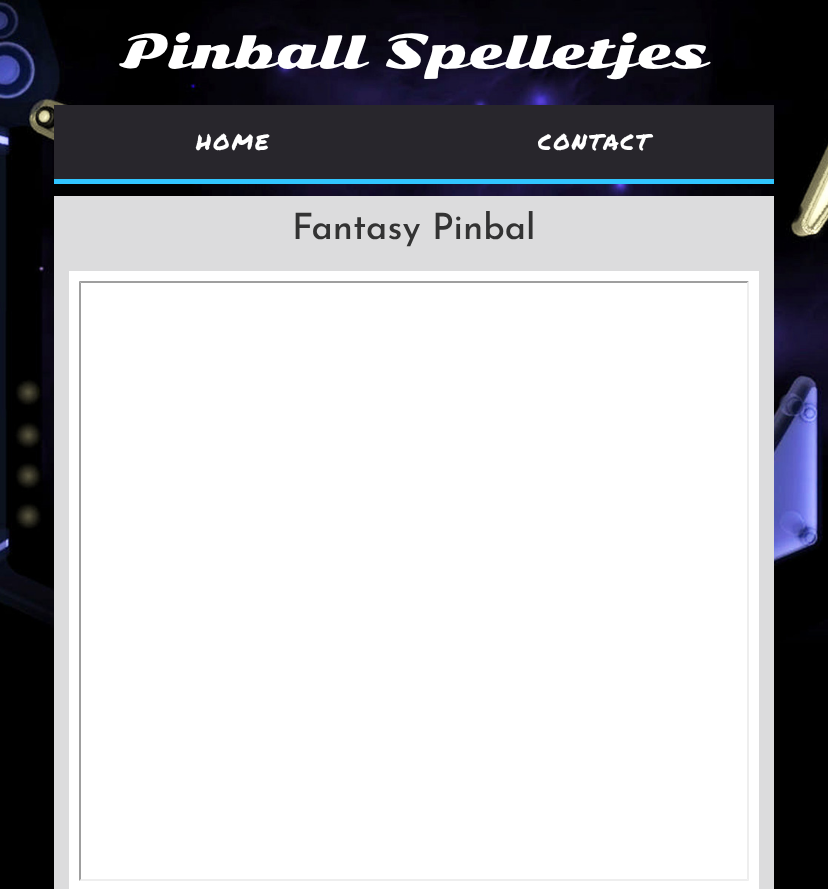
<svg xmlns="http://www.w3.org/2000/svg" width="828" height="889">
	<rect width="100%" height="100%" fill="#000000" />
	<image x="0" y="0" width="828" height="643" href="assets/img1.png" />
	<text x="121" y="68" font-family="Sonsie One" font-size="45.3" letter-spacing="1" fill="#FFFFFF">Pinball Spelletjes</text>
	<rect x="54" y="105" width="720" height="74" fill="#28262C" />
	<rect x="54" y="179" width="720" height="5" fill="#30C5FF" />
	<g font-family="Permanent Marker" font-size="22" letter-spacing="2" fill="#FFFFFF">
		<text x="196" y="150">HOME</text>
		<text x="538" y="150">CONTACT</text>
	</g>
	<rect x="54" y="196" width="720" height="693" fill="#DCDCDD" />
	<text x="292" y="239" font-family="Josefin Sans" font-size="36" font-weight="500" fill="#333333">Fantasy Pinbal</text>
	<rect x="69" y="271" width="690" height="618" fill="#FFFFFF" />
	<path d="M79 281H749L747 283H81Z" fill="#9F9F9F" />
	<path d="M749 281V881L747 879V283Z" fill="#EEEEEE" />
	<path d="M749 881H79L81 879H747Z" fill="#EEEEEE" />
	<path d="M79 881V281L81 283V879Z" fill="#9F9F9F" />
</svg>
